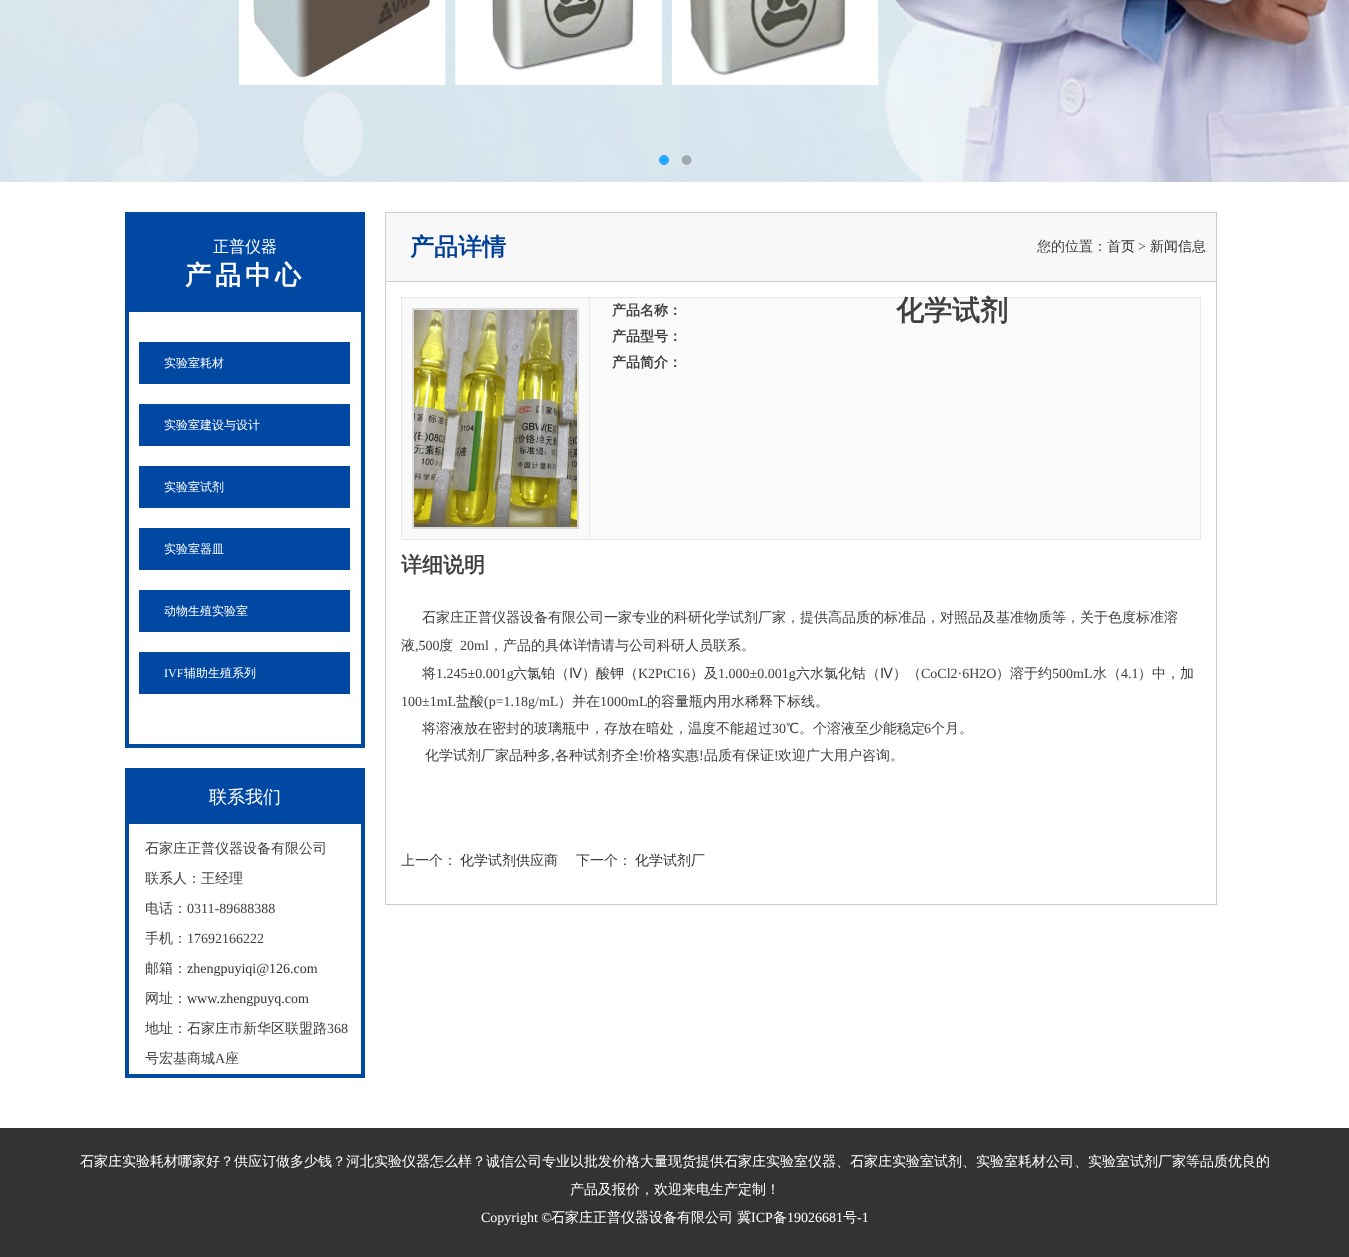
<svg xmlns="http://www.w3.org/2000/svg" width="1349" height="1257">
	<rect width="100%" height="100%" fill="#FFFFFF" />
	<image x="0" y="0" width="1349" height="182" href="assets/img1.png" />
	<image x="659" y="155" width="10" height="10" href="assets/img2.png" />
	<image x="681" y="154" width="11" height="12" href="assets/img3.png" />
	<rect x="125" y="212" width="240" height="100" fill="#0048A2" />
	<text x="213" y="252" font-family="WenQuanYi Zen Hei" font-size="16" font-weight="500" fill="#FFFFFF">正普仪器</text>
	<text x="185" y="284" font-family="WenQuanYi Zen Hei" font-size="26" font-weight="700" letter-spacing="4" fill="#FFFFFF">产品中心</text>
	<rect x="361" y="312" width="4" height="436" fill="#004AA0" />
	<rect x="125" y="744" width="240" height="4" fill="#004AA0" />
	<rect x="125" y="312" width="4" height="436" fill="#004AA0" />
	<rect x="139" y="342" width="211" height="42" fill="#0048A2" />
	<text x="164" y="367" font-family="WenQuanYi Zen Hei" font-size="12" font-weight="500" fill="#FFFFFF">实验室耗材</text>
	<rect x="139" y="404" width="211" height="42" fill="#0048A2" />
	<text x="164" y="429" font-family="WenQuanYi Zen Hei" font-size="12" font-weight="500" fill="#FFFFFF">实验室建设与设计</text>
	<rect x="139" y="466" width="211" height="42" fill="#0048A2" />
	<text x="164" y="491" font-family="WenQuanYi Zen Hei" font-size="12" font-weight="500" fill="#FFFFFF">实验室试剂</text>
	<rect x="139" y="528" width="211" height="42" fill="#0048A2" />
	<text x="164" y="553" font-family="WenQuanYi Zen Hei" font-size="12" font-weight="500" fill="#FFFFFF">实验室器皿</text>
	<rect x="139" y="590" width="211" height="42" fill="#0048A2" />
	<text x="164" y="615" font-family="WenQuanYi Zen Hei" font-size="12" font-weight="500" fill="#FFFFFF">动物生殖实验室</text>
	<rect x="139" y="652" width="211" height="42" fill="#0048A2" />
	<text x="164" y="677" font-family="Liberation Serif" font-size="12" fill="#FFFFFF">IVF</text>
	<text x="184" y="677" font-family="WenQuanYi Zen Hei" font-size="12" font-weight="500" fill="#FFFFFF">辅助生殖系列</text>
	<rect x="125" y="768" width="240" height="52" fill="#0048A2" />
	<text x="209" y="803" font-family="WenQuanYi Zen Hei" font-size="18" font-weight="500" fill="#FFFFFF">联系我们</text>
	<rect x="127" y="822" width="236" height="254" fill="none" stroke="#004AA0" stroke-width="4" />
	<g font-family="WenQuanYi Zen Hei" font-size="14" font-weight="500" fill="#404040">
		<text x="145" y="853">石家庄正普仪器设备有限公司</text>
		<text x="145" y="883">联系人：王经理</text>
		<text x="145" y="913">电话：</text>
	</g>
	<text x="187" y="913" font-family="Liberation Serif" font-size="14" fill="#404040">0311-89688388</text>
	<text x="145" y="943" font-family="WenQuanYi Zen Hei" font-size="14" font-weight="500" fill="#404040">手机：</text>
	<text x="187" y="943" font-family="Liberation Serif" font-size="14" fill="#404040">17692166222</text>
	<text x="145" y="973" font-family="WenQuanYi Zen Hei" font-size="14" font-weight="500" fill="#404040">邮箱：</text>
	<text x="187" y="973" font-family="Liberation Serif" font-size="14" fill="#333333">zhengpuyiqi@126.com</text>
	<text x="145" y="1003" font-family="WenQuanYi Zen Hei" font-size="14" font-weight="500" fill="#404040">网址：</text>
	<text x="187" y="1003" font-family="Liberation Serif" font-size="14" fill="#333333">www.zhengpuyq.com</text>
	<text x="145" y="1033" font-family="WenQuanYi Zen Hei" font-size="14" font-weight="500" fill="#404040">地址：石家庄市新华区联盟路</text>
	<text x="327" y="1033" font-family="Liberation Serif" font-size="14" fill="#404040">368</text>
	<text x="145" y="1063" font-family="WenQuanYi Zen Hei" font-size="14" font-weight="500" fill="#404040">号宏基商城</text>
	<text x="215" y="1063" font-family="Liberation Serif" font-size="14" fill="#404040">A</text>
	<text x="225" y="1063" font-family="WenQuanYi Zen Hei" font-size="14" font-weight="500" fill="#404040">座</text>
	<rect x="385.5" y="212.5" width="831" height="69" fill="#F8F8F8" stroke="#CCCCCC" />
	<text x="410" y="255" font-family="WenQuanYi Zen Hei" font-size="24" font-weight="700" fill="#004098">产品详情</text>
	<text x="1037" y="251" font-family="WenQuanYi Zen Hei" font-size="14" font-weight="500" fill="#404040">您的位置：</text>
	<text x="1107" y="251" font-family="WenQuanYi Zen Hei" font-size="14" font-weight="500" fill="#333333">首页</text>
	<text x="1138" y="251" font-family="Liberation Serif" font-size="14" fill="#404040">&gt;</text>
	<text x="1150" y="251" font-family="WenQuanYi Zen Hei" font-size="14" font-weight="500" fill="#333333">新闻信息</text>
	<rect x="1216" y="282" width="1" height="623" fill="#CCCCCC" />
	<rect x="385" y="904" width="832" height="1" fill="#CCCCCC" />
	<rect x="385" y="282" width="1" height="623" fill="#CCCCCC" />
	<rect x="402" y="298" width="798" height="241" fill="#FAFAFA" />
	<rect x="401" y="297" width="800" height="1" fill="#E7E7E7" />
	<rect x="1200" y="297" width="1" height="243" fill="#E7E7E7" />
	<rect x="401" y="539" width="800" height="1" fill="#E7E7E7" />
	<rect x="401" y="297" width="1" height="243" fill="#E7E7E7" />
	<rect x="589" y="297" width="1" height="243" fill="#E7E7E7" />
	<rect x="413" y="309" width="165" height="219" fill="none" stroke="#DBDBDB" stroke-width="2" />
	<image x="414" y="310" width="163" height="217" href="assets/img4.png" />
	<text x="612" y="315" font-family="WenQuanYi Zen Hei" font-size="14" font-weight="700" fill="#404040">产品名称：</text>
	<text x="896" y="320" font-family="WenQuanYi Zen Hei" font-size="28" font-weight="700" fill="#404040">化学试剂</text>
	<g font-family="WenQuanYi Zen Hei" font-size="14" font-weight="700" fill="#404040">
		<text x="612" y="341">产品型号：</text>
		<text x="612" y="367">产品简介：</text>
	</g>
	<text x="401" y="572" font-family="WenQuanYi Zen Hei" font-size="21" font-weight="700" fill="#404040">详细说明</text>
	<g font-family="WenQuanYi Zen Hei" font-size="14" font-weight="500" fill="#404040">
		<text x="422" y="622">石家庄正普仪器设备有限公司一家专业的科研化学试剂厂家，提供高品质的标准品，对照品及基准物质等，关于色度标准溶</text>
		<text x="401" y="650">液</text>
	</g>
	<text x="415" y="650" font-family="Liberation Serif" font-size="14" fill="#404040">,500</text>
	<text x="439" y="650" font-family="WenQuanYi Zen Hei" font-size="14" font-weight="500" fill="#404040">度</text>
	<text x="460" y="650" font-family="Liberation Serif" font-size="14" fill="#404040">20ml</text>
	<g font-family="WenQuanYi Zen Hei" font-size="14" font-weight="500" fill="#404040">
		<text x="489" y="650">，产品的具体详情请与公司科研人员联系。</text>
		<text x="422" y="678">将</text>
	</g>
	<text x="436" y="678" font-family="Liberation Serif" font-size="14" fill="#404040">1.245±0.001g</text>
	<text x="513" y="678" font-family="WenQuanYi Zen Hei" font-size="14" font-weight="500" fill="#404040">六氯铂（</text>
	<text x="569" y="678" font-family="DejaVu Sans" font-size="14" fill="#404040">Ⅳ</text>
	<text x="582" y="678" font-family="WenQuanYi Zen Hei" font-size="14" font-weight="500" fill="#404040">）酸钾（</text>
	<text x="638" y="678" font-family="Liberation Serif" font-size="14" fill="#404040">K2PtC16</text>
	<text x="690" y="678" font-family="WenQuanYi Zen Hei" font-size="14" font-weight="500" fill="#404040">）及</text>
	<text x="718" y="678" font-family="Liberation Serif" font-size="14" fill="#404040">1.000±0.001g</text>
	<text x="796" y="678" font-family="WenQuanYi Zen Hei" font-size="14" font-weight="500" fill="#404040">六水氯化钴（</text>
	<text x="880" y="678" font-family="DejaVu Sans" font-size="14" fill="#404040">Ⅳ</text>
	<text x="893" y="678" font-family="WenQuanYi Zen Hei" font-size="14" font-weight="500" fill="#404040">）（</text>
	<text x="921" y="678" font-family="Liberation Serif" font-size="14" fill="#404040">CoCl2·6H2O</text>
	<text x="996" y="678" font-family="WenQuanYi Zen Hei" font-size="14" font-weight="500" fill="#404040">）溶于约</text>
	<text x="1052" y="678" font-family="Liberation Serif" font-size="14" fill="#404040">500mL</text>
	<text x="1093" y="678" font-family="WenQuanYi Zen Hei" font-size="14" font-weight="500" fill="#404040">水（</text>
	<text x="1121" y="678" font-family="Liberation Serif" font-size="14" fill="#404040">4.1</text>
	<text x="1138" y="678" font-family="WenQuanYi Zen Hei" font-size="14" font-weight="500" fill="#404040">）中，加</text>
	<text x="401" y="706" font-family="Liberation Serif" font-size="14" fill="#404040">100±1mL</text>
	<text x="456" y="706" font-family="WenQuanYi Zen Hei" font-size="14" font-weight="500" fill="#404040">盐酸</text>
	<text x="484" y="706" font-family="Liberation Serif" font-size="14" fill="#404040">(p=1.18g/mL</text>
	<text x="558" y="706" font-family="WenQuanYi Zen Hei" font-size="14" font-weight="500" fill="#404040">）并在</text>
	<text x="600" y="706" font-family="Liberation Serif" font-size="14" fill="#404040">1000mL</text>
	<g font-family="WenQuanYi Zen Hei" font-size="14" font-weight="500" fill="#404040">
		<text x="647" y="706">的容量瓶内用水稀释下标线。</text>
		<text x="422" y="733">将溶液放在密封的玻璃瓶中，存放在暗处，温度不能超过</text>
	</g>
	<text x="772" y="733" font-family="Liberation Serif" font-size="14" fill="#404040">30</text>
	<text x="786" y="733" font-family="WenQuanYi Zen Hei" font-size="14" font-weight="500" fill="#404040">℃。个溶液至少能稳定</text>
	<text x="924" y="733" font-family="Liberation Serif" font-size="14" fill="#404040">6</text>
	<g font-family="WenQuanYi Zen Hei" font-size="14" font-weight="500" fill="#404040">
		<text x="931" y="733">个月。</text>
		<text x="425" y="760">化学试剂厂家品种多</text>
	</g>
	<text x="551" y="760" font-family="Liberation Serif" font-size="14" fill="#404040">,</text>
	<text x="555" y="760" font-family="WenQuanYi Zen Hei" font-size="14" font-weight="500" fill="#404040">各种试剂齐全</text>
	<text x="639" y="760" font-family="Liberation Serif" font-size="14" fill="#404040">!</text>
	<text x="643" y="760" font-family="WenQuanYi Zen Hei" font-size="14" font-weight="500" fill="#404040">价格实惠</text>
	<text x="699" y="760" font-family="Liberation Serif" font-size="14" fill="#404040">!</text>
	<text x="704" y="760" font-family="WenQuanYi Zen Hei" font-size="14" font-weight="500" fill="#404040">品质有保证</text>
	<text x="774" y="760" font-family="Liberation Serif" font-size="14" fill="#404040">!</text>
	<g font-family="WenQuanYi Zen Hei" font-size="14" font-weight="500" fill="#404040">
		<text x="778" y="760">欢迎广大用户咨询。</text>
		<text x="401" y="865">上一个：</text>
	</g>
	<text x="460" y="865" font-family="WenQuanYi Zen Hei" font-size="14" font-weight="500" fill="#333333">化学试剂供应商</text>
	<text x="576" y="865" font-family="WenQuanYi Zen Hei" font-size="14" font-weight="500" fill="#404040">下一个：</text>
	<text x="635" y="865" font-family="WenQuanYi Zen Hei" font-size="14" font-weight="500" fill="#333333">化学试剂厂</text>
	<rect x="0" y="1128" width="1349" height="129" fill="#333333" />
	<g font-family="WenQuanYi Zen Hei" font-size="14" font-weight="500" fill="#FFFFFF">
		<text x="80" y="1166">石家庄实验耗材哪家好？供应订做多少钱？河北实验仪器怎么样？诚信公司专业以批发价格大量现货提供石家庄实验室仪器、石家庄实验室试剂、实验室耗材公司、实验室试剂厂家等品质优良的</text>
		<text x="570" y="1194">产品及报价，欢迎来电生产定制！</text>
	</g>
	<text x="481" y="1222" font-family="Liberation Serif" font-size="14" fill="#FFFFFF">Copyright ©</text>
	<g font-family="WenQuanYi Zen Hei" font-size="14" font-weight="500" fill="#FFFFFF">
		<text x="551" y="1222">石家庄正普仪器设备有限公司</text>
		<text x="737" y="1222">冀</text>
	</g>
	<text x="751" y="1222" font-family="Liberation Serif" font-size="14" fill="#FFFFFF">ICP</text>
	<text x="773" y="1222" font-family="WenQuanYi Zen Hei" font-size="14" font-weight="500" fill="#FFFFFF">备</text>
	<text x="787" y="1222" font-family="Liberation Serif" font-size="14" fill="#FFFFFF">19026681</text>
	<text x="843" y="1222" font-family="WenQuanYi Zen Hei" font-size="14" font-weight="500" fill="#FFFFFF">号</text>
	<text x="857" y="1222" font-family="Liberation Serif" font-size="14" fill="#FFFFFF">-1</text>
</svg>
